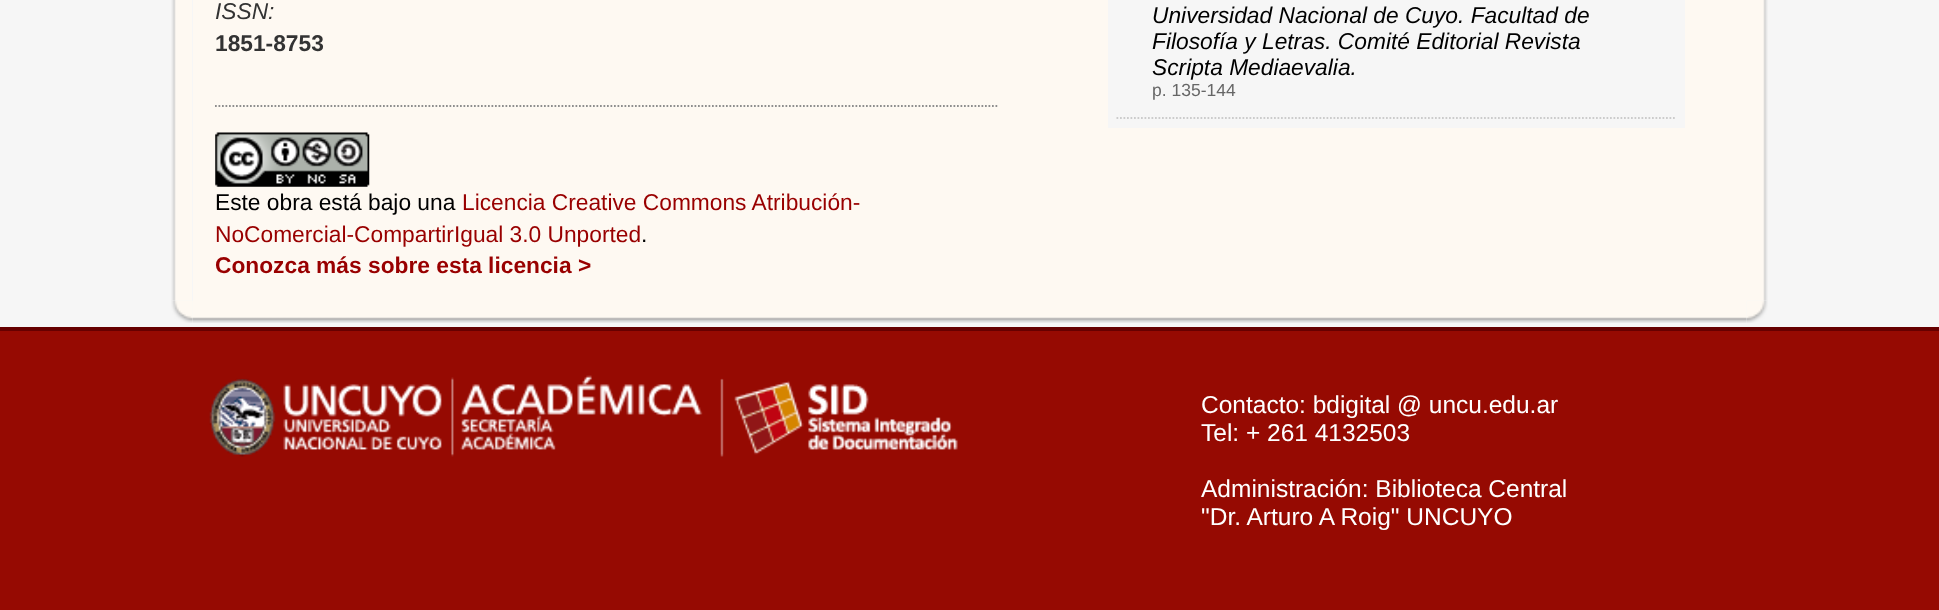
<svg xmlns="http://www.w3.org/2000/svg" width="1939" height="610">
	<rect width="100%" height="100%" fill="#F6F6F6" />
	<image x="171" y="0" width="21" height="301" href="assets/img1.png" />
	<rect x="193" y="0" width="1554" height="301" fill="#FEF9F2" />
	<text x="215" y="19" font-family="Liberation Sans" font-size="22.75" font-style="italic" fill="#333333">ISSN:</text>
	<text x="215" y="51" font-family="Liberation Sans" font-size="22.75" font-weight="700" fill="#333333">1851-8753</text>
	<path d="M215 106H999" fill="none" stroke="#8E8E8E" stroke-width="1.8" stroke-dasharray="1.75 1.75" />
	<image x="215" y="132" width="155" height="55" href="assets/img2.png" />
	<text x="215" y="210" font-family="Liberation Sans" font-size="22.75" fill="#000000">Este obra está bajo una</text>
	<g font-family="Liberation Sans" font-size="22.75" fill="#990000">
		<text x="462" y="210">Licencia Creative Commons Atribución-</text>
		<text x="215" y="242">NoComercial-CompartirIgual 3.0 Unported</text>
	</g>
	<text x="641" y="242" font-family="Liberation Sans" font-size="22.75" fill="#000000">.</text>
	<text x="215" y="273" font-family="Liberation Sans" font-size="22.75" font-weight="700" fill="#990000">Conozca más sobre esta licencia &gt;</text>
	<rect x="1108" y="0" width="577" height="128" fill="#F6F6F6" />
	<path d="M1116.5 118H1676.5" fill="none" stroke="#CCCCCC" stroke-width="1.8" stroke-dasharray="1.75 1.75" />
	<g font-family="Liberation Sans" font-size="22.75" font-style="italic" fill="#000000">
		<text x="1152" y="23">Universidad Nacional de Cuyo. Facultad de</text>
		<text x="1152" y="49">Filosofía y Letras. Comité Editorial Revista</text>
		<text x="1152" y="75">Scripta Mediaevalia.</text>
	</g>
	<text x="1152" y="96" font-family="Liberation Sans" font-size="17.5" fill="#666666">p. 135-144</text>
	<image x="1747" y="0" width="21" height="301" href="assets/img3.png" />
	<image x="192" y="301" width="1555" height="22" href="assets/img5.png" />
	<image x="171" y="300" width="22" height="23" href="assets/img4.png" />
	<image x="1746" y="300" width="22" height="23" href="assets/img6.png" />
	<rect x="0" y="331" width="1939" height="279" fill="#960A02" />
	<rect x="0" y="327" width="1939" height="4" fill="#660000" />
	<image x="209" y="375" width="749" height="82" href="assets/img7.png" />
	<g font-family="Liberation Sans" font-size="24.5" fill="#FFFFFF">
		<text x="1201" y="413">Contacto: bdigital @ uncu.edu.ar</text>
		<text x="1201" y="441">Tel: + 261 4132503</text>
		<text x="1201" y="497">Administración: Biblioteca Central</text>
		<text x="1201" y="525">"Dr. Arturo A Roig" UNCUYO</text>
	</g>
</svg>
